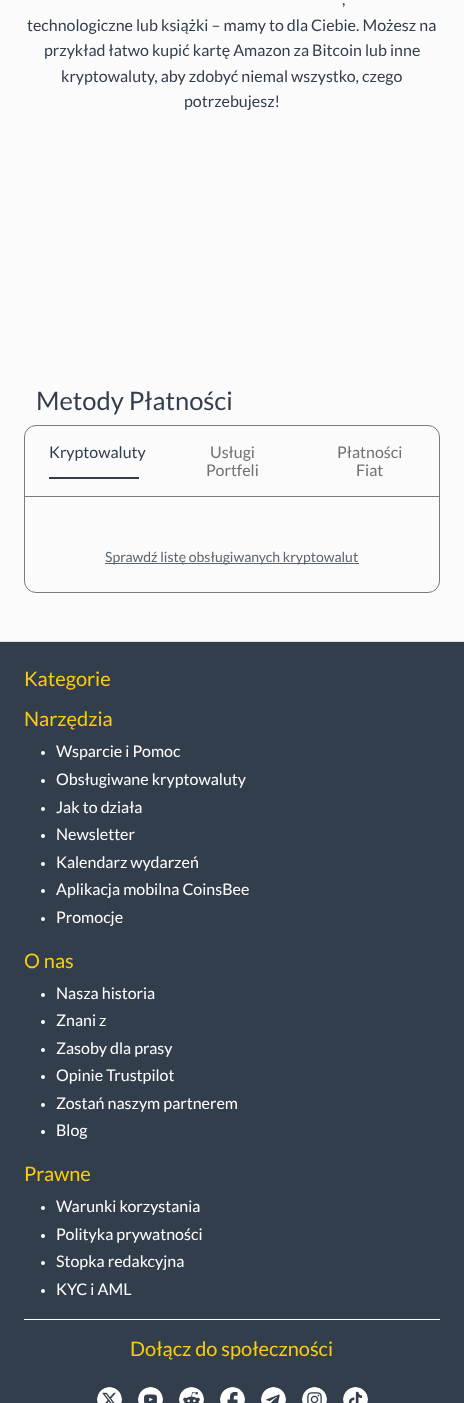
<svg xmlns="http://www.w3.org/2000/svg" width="464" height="1403">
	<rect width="100%" height="100%" fill="#FBFBFB" />
	<g font-family="Lato" font-size="16" fill="#333E4D">
		<text x="342" y="5">,</text>
		<text x="27" y="31">technologiczne lub książki – mamy to dla Ciebie. Możesz na</text>
		<text x="44" y="56">przykład łatwo kupić kartę Amazon za Bitcoin lub inne</text>
		<text x="61" y="82">kryptowaluty, aby zdobyć niemal wszystko, czego</text>
		<text x="184" y="107">potrzebujesz!</text>
	</g>
	<text x="36" y="410" font-family="Lato" font-size="25.5" fill="#333E4D">Metody Płatności</text>
	<rect x="24.5" y="425.5" width="415" height="167" rx="11.5" fill="none" stroke="#767A81" />
	<rect x="25" y="496" width="414" height="1" fill="#767A81" />
	<rect x="49" y="477" width="90" height="2" fill="#333E4D" />
	<text x="49" y="458" font-family="Lato" font-size="16" fill="#333E4D">Kryptowaluty</text>
	<g font-family="Lato" font-size="16" fill="#717171">
		<text x="210" y="458">Usługi</text>
		<text x="206" y="476">Portfeli</text>
		<text x="337" y="458">Płatności</text>
		<text x="356" y="476">Fiat</text>
	</g>
	<rect x="105" y="563" width="254" height="1" fill="#5B6470" />
	<text x="105" y="562" font-family="Lato" font-size="14" fill="#5B6470">Sprawdź listę obsługiwanych kryptowalut</text>
	<rect x="0" y="641" width="464" height="1" fill="#E0E0E0" />
	<rect x="0" y="642" width="464" height="761" fill="#333E4D" />
	<rect x="24" y="1319" width="416" height="1" fill="#FFFFFF" />
	<g font-family="Lato" font-size="20" fill="#FBCC0D">
		<text x="24" y="686">Kategorie</text>
		<text x="24" y="726">Narzędzia</text>
	</g>
	<circle cx="43" cy="753" r="2" fill="#FFFFFF" />
	<text x="56" y="757" font-family="Lato" font-size="16" fill="#FFFFFF">Wsparcie i Pomoc</text>
	<circle cx="43" cy="781" r="2" fill="#FFFFFF" />
	<text x="56" y="785" font-family="Lato" font-size="16" fill="#FFFFFF">Obsługiwane kryptowaluty</text>
	<circle cx="43" cy="809" r="2" fill="#FFFFFF" />
	<text x="56" y="813" font-family="Lato" font-size="16" fill="#FFFFFF">Jak to działa</text>
	<circle cx="43" cy="836" r="2" fill="#FFFFFF" />
	<text x="56" y="840" font-family="Lato" font-size="16" fill="#FFFFFF">Newsletter</text>
	<circle cx="43" cy="864" r="2" fill="#FFFFFF" />
	<text x="56" y="868" font-family="Lato" font-size="16" fill="#FFFFFF">Kalendarz wydarzeń</text>
	<circle cx="43" cy="891" r="2" fill="#FFFFFF" />
	<text x="56" y="895" font-family="Lato" font-size="16" fill="#FFFFFF">Aplikacja mobilna CoinsBee</text>
	<circle cx="43" cy="919" r="2" fill="#FFFFFF" />
	<text x="56" y="923" font-family="Lato" font-size="16" fill="#FFFFFF">Promocje</text>
	<text x="24" y="968" font-family="Lato" font-size="20" fill="#FBCC0D">O nas</text>
	<circle cx="43" cy="995" r="2" fill="#FFFFFF" />
	<text x="56" y="999" font-family="Lato" font-size="16" fill="#FFFFFF">Nasza historia</text>
	<circle cx="43" cy="1022" r="2" fill="#FFFFFF" />
	<text x="56" y="1026" font-family="Lato" font-size="16" fill="#FFFFFF">Znani z</text>
	<circle cx="43" cy="1050" r="2" fill="#FFFFFF" />
	<text x="56" y="1054" font-family="Lato" font-size="16" fill="#FFFFFF">Zasoby dla prasy</text>
	<circle cx="43" cy="1077" r="2" fill="#FFFFFF" />
	<text x="56" y="1081" font-family="Lato" font-size="16" fill="#FFFFFF">Opinie Trustpilot</text>
	<circle cx="43" cy="1105" r="2" fill="#FFFFFF" />
	<text x="56" y="1109" font-family="Lato" font-size="16" fill="#FFFFFF">Zostań naszym partnerem</text>
	<circle cx="43" cy="1132" r="2" fill="#FFFFFF" />
	<text x="56" y="1136" font-family="Lato" font-size="16" fill="#FFFFFF">Blog</text>
	<text x="24" y="1181" font-family="Lato" font-size="20" fill="#FBCC0D">Prawne</text>
	<circle cx="43" cy="1208" r="2" fill="#FFFFFF" />
	<text x="56" y="1212" font-family="Lato" font-size="16" fill="#FFFFFF">Warunki korzystania</text>
	<circle cx="43" cy="1236" r="2" fill="#FFFFFF" />
	<text x="56" y="1240" font-family="Lato" font-size="16" fill="#FFFFFF">Polityka prywatności</text>
	<circle cx="43" cy="1263" r="2" fill="#FFFFFF" />
	<text x="56" y="1267" font-family="Lato" font-size="16" fill="#FFFFFF">Stopka redakcyjna</text>
	<circle cx="43" cy="1291" r="2" fill="#FFFFFF" />
	<text x="56" y="1295" font-family="Lato" font-size="16" fill="#FFFFFF">KYC i AML</text>
	<text x="130" y="1356" font-family="Lato" font-size="20" fill="#FBCC0D">Dołącz do społeczności</text>
	<image x="97" y="1387" width="25" height="16" href="assets/img1.png" />
	<image x="138" y="1387" width="25" height="16" href="assets/img2.png" />
	<image x="179" y="1387" width="25" height="16" href="assets/img3.png" />
	<image x="220" y="1387" width="25" height="16" href="assets/img4.png" />
	<image x="261" y="1387" width="25" height="16" href="assets/img5.png" />
	<image x="302" y="1387" width="25" height="16" href="assets/img6.png" />
	<image x="343" y="1387" width="25" height="16" href="assets/img7.png" />
</svg>
